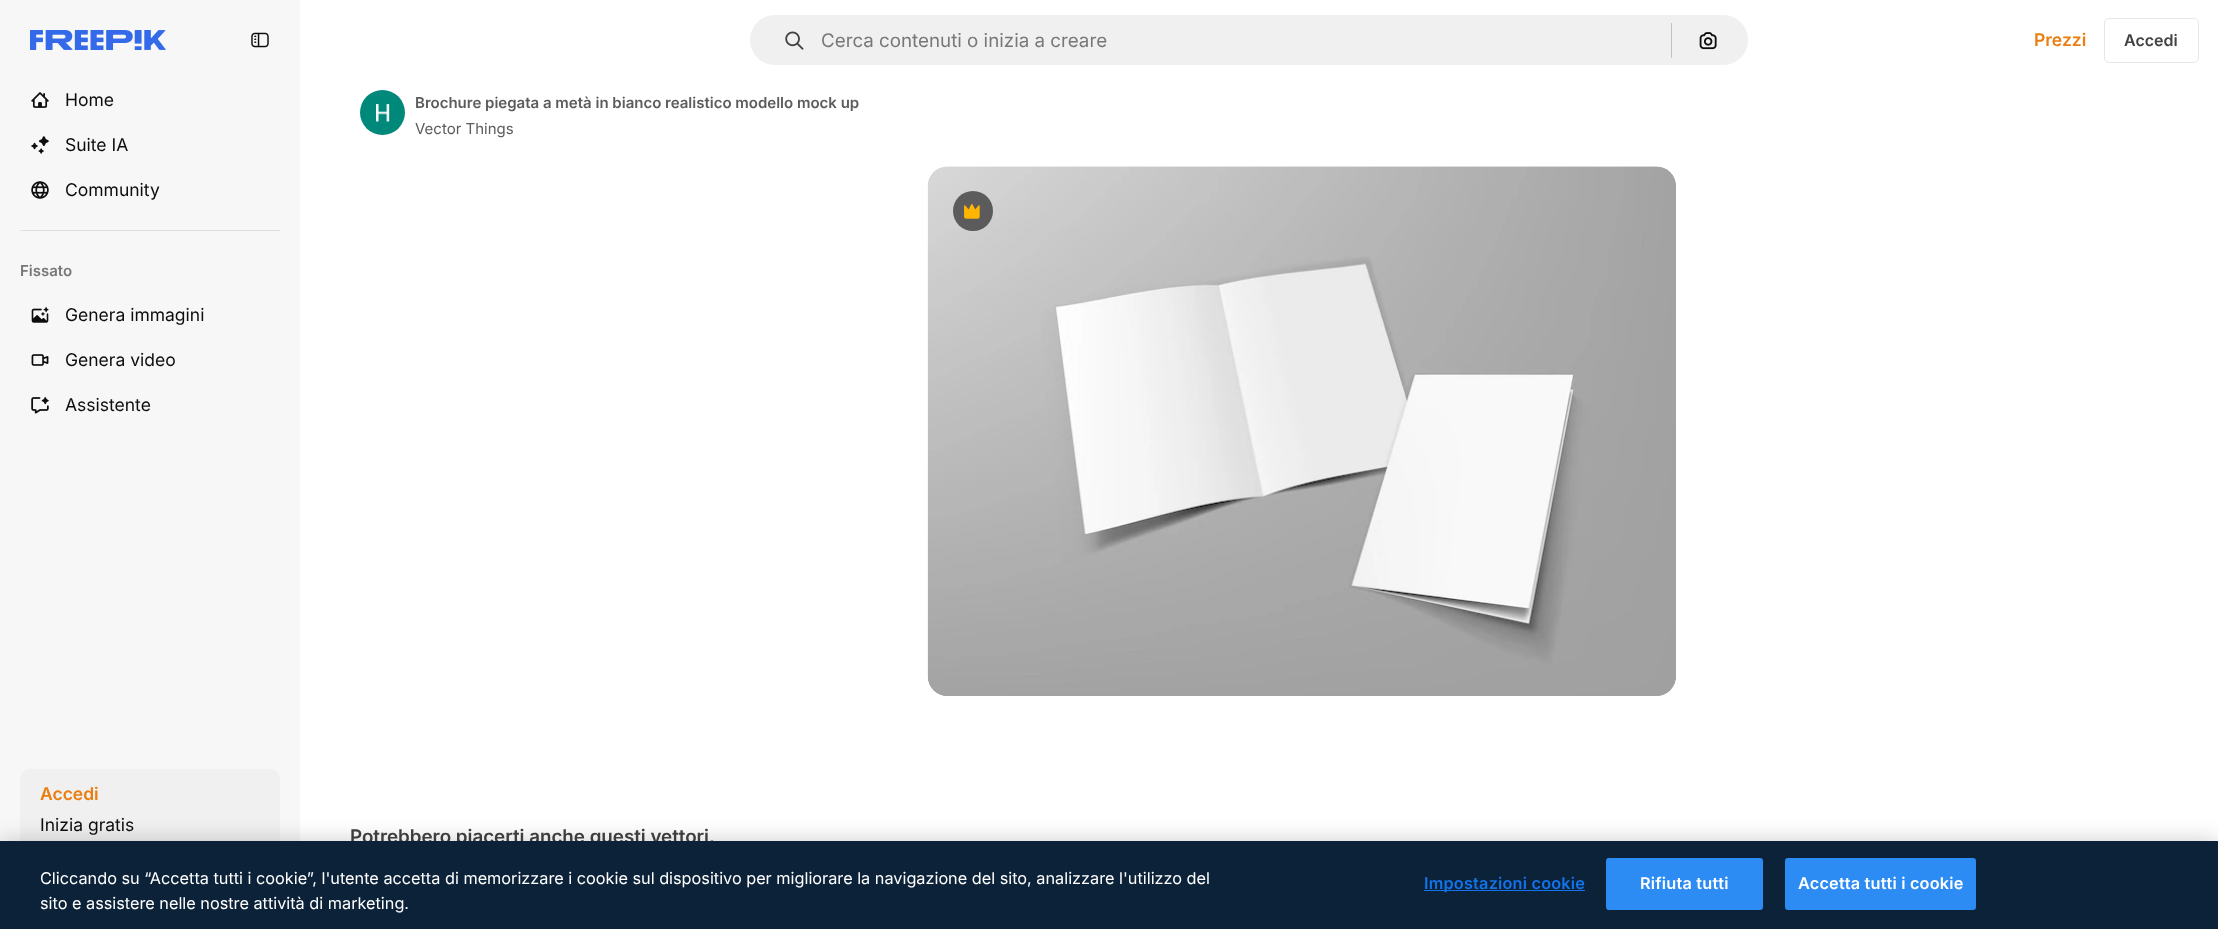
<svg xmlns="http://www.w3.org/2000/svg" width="2218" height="929">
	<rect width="100%" height="100%" fill="#FFFFFF" />
	<rect x="0" y="0" width="300" height="841" fill="#F7F7F7" />
	<image x="30" y="30" width="136" height="20" href="assets/img1.png" />
	<image x="251" y="32" width="18" height="16" href="assets/img2.png" />
	<image x="31" y="92" width="18" height="16" href="assets/img3.png" />
	<text x="65" y="106" font-family="Inter" font-size="17.5" fill="#0D0D0D">Home</text>
	<image x="31" y="136" width="18" height="18" href="assets/img4.png" />
	<text x="65" y="151" font-family="Inter" font-size="17.5" fill="#0D0D0D">Suite IA</text>
	<image x="31" y="181" width="18" height="18" href="assets/img5.png" />
	<text x="65" y="196" font-family="Inter" font-size="17.5" fill="#0D0D0D">Community</text>
	<rect x="20" y="230" width="260" height="1" fill="#E0E0E0" />
	<text x="20" y="276" font-family="Inter" font-size="15" font-weight="600" fill="#787878">Fissato</text>
	<image x="31" y="307" width="18" height="16" href="assets/img6.png" />
	<text x="65" y="321" font-family="Inter" font-size="17.5" fill="#0D0D0D">Genera immagini</text>
	<image x="31" y="354" width="18" height="12" href="assets/img7.png" />
	<text x="65" y="366" font-family="Inter" font-size="17.5" fill="#0D0D0D">Genera video</text>
	<image x="31" y="397" width="18" height="17" href="assets/img8.png" />
	<text x="65" y="411" font-family="Inter" font-size="17.5" fill="#0D0D0D">Assistente</text>
	<rect x="20" y="769" width="260" height="81" rx="10" fill="#F0F0F0" />
	<text x="40" y="800" font-family="Inter" font-size="17.5" font-weight="600" fill="#EA7E11">Accedi</text>
	<text x="40" y="831" font-family="Inter" font-size="17.5" fill="#0D0D0D">Inizia gratis</text>
	<rect x="749.5" y="14.5" width="999" height="51" rx="25.5" fill="#F0F0F0" stroke="#FFFFFF" />
	<image x="785" y="31" width="19" height="19" href="assets/img9.png" />
	<text x="821" y="47" font-family="Inter" font-size="18.75" fill="#787878">Cerca contenuti o inizia a creare</text>
	<rect x="1671" y="23" width="1" height="35" fill="#C3C3C3" />
	<image x="1699" y="32" width="18" height="18" href="assets/img10.png" />
	<text x="2034" y="46" font-family="Inter" font-size="17.5" font-weight="600" fill="#EA7E11">Prezzi</text>
	<rect x="2104.5" y="18.5" width="94" height="44" rx="4.5" fill="none" stroke="#E7E7E7" />
	<text x="2124" y="46" font-family="Inter" font-size="16" font-weight="600" fill="#424242">Accedi</text>
	<image x="360" y="90" width="45" height="45" href="assets/img11.png" />
	<text x="415" y="108" font-family="Inter" font-size="15" font-weight="600" fill="#5C5C5C">Brochure piegata a metà in bianco realistico modello mock up</text>
	<text x="415" y="134" font-family="Inter" font-size="15" fill="#5C5C5C">Vector Things</text>
	<image x="927" y="166" width="749" height="530" href="assets/img12.png" />
	<circle cx="973" cy="211" r="20" fill="#0D0D0D" fill-opacity="0.6" />
	<image x="964" y="204" width="16" height="15" href="assets/img13.png" />
	<text x="350" y="843" font-family="Inter" font-size="18.75" font-weight="600" fill="#424242">Potrebbero piacerti anche questi vettori.</text>
	<rect x="0" y="841" width="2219" height="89" fill="#000000" fill-opacity="0.2" filter="blur(11px)" />
	<rect x="0" y="841" width="2218" height="88" fill="#0B2239" />
	<g font-family="Inter" font-size="16.25" fill="#FFFFFF">
		<text x="40" y="884">Cliccando su “Accetta tutti i cookie”, l'utente accetta di memorizzare i cookie sul dispositivo per migliorare la navigazione del sito, analizzare l'utilizzo del</text>
		<text x="40" y="909">sito e assistere nelle nostre attività di marketing.</text>
	</g>
	<rect x="1424" y="890" width="161" height="1" fill="#1273EB" />
	<text x="1424" y="889" font-family="Inter" font-size="16.25" font-weight="600" letter-spacing="0.2" fill="#1273EB">Impostazioni cookie</text>
	<rect x="1606.5" y="858.5" width="156" height="51" rx="2" fill="#2C8CF4" stroke="#2C8CF4" />
	<text x="1640" y="889" font-family="Inter" font-size="16.25" font-weight="600" letter-spacing="0.2" fill="#FFFFFF">Rifiuta tutti</text>
	<rect x="1785.5" y="858.5" width="190" height="51" rx="2" fill="#2C8CF4" stroke="#2C8CF4" />
	<text x="1798" y="889" font-family="Inter" font-size="16.25" font-weight="600" letter-spacing="0.2" fill="#FFFFFF">Accetta tutti i cookie</text>
</svg>
